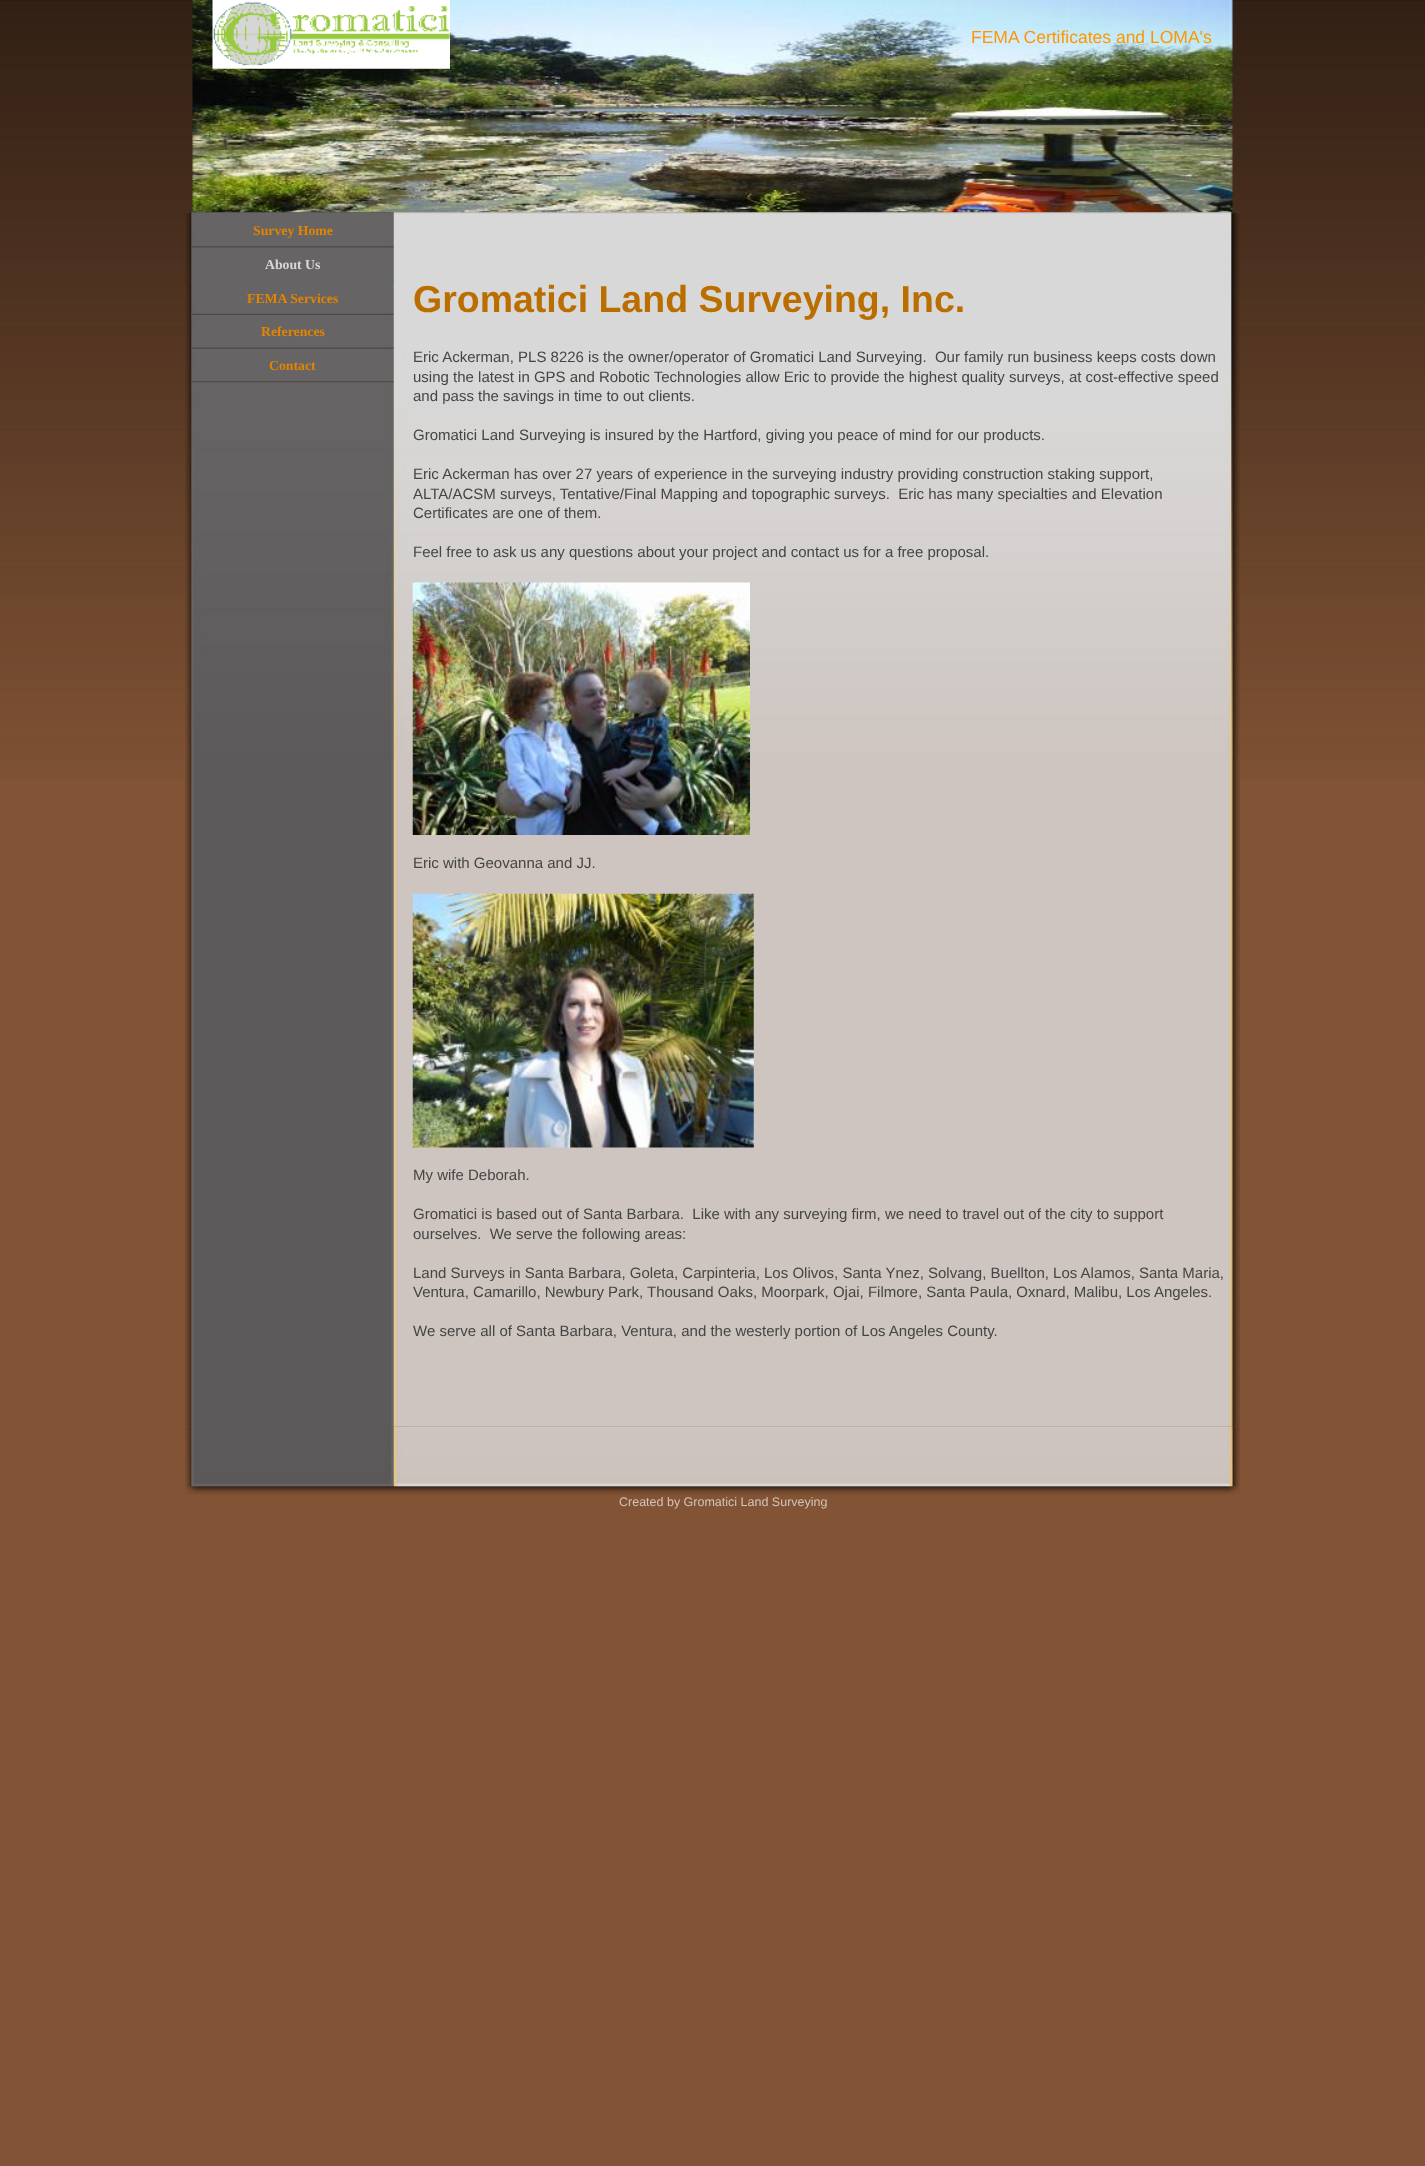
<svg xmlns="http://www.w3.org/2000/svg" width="1425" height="2166">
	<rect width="100%" height="100%" fill="#825435" />
	<image x="0" y="0" width="1425" height="780" href="assets/img1.png" />
	<image x="192" y="0" width="1041" height="213" href="assets/img2.png" />
	<image x="212" y="0" width="238" height="69" href="assets/img3.png" />
	<text x="971" y="43" font-family="Liberation Sans" font-size="17.5" fill="#FF9600">FEMA Certificates and LOMA's</text>
	<image x="185" y="1426" width="1055" height="69" href="assets/img13.png" />
	<image x="185" y="212" width="1055" height="1215" href="assets/img4.png" />
	<image x="185" y="212" width="1055" height="547" href="assets/img5.png" />
	<image x="192" y="246" width="202" height="2" href="assets/img6.png" />
	<text x="253" y="235" font-family="Liberation Serif" font-size="13.75" font-weight="700" fill="#E28500">Survey Home</text>
	<image x="191" y="280" width="203" height="2" href="assets/img7.png" />
	<text x="265" y="269" font-family="Liberation Serif" font-size="13.75" font-weight="700" fill="#D9D8D8">About Us</text>
	<image x="192" y="313" width="202" height="2" href="assets/img8.png" />
	<text x="247" y="303" font-family="Liberation Serif" font-size="13.75" font-weight="700" fill="#E28500">FEMA Services</text>
	<image x="192" y="347" width="202" height="2" href="assets/img9.png" />
	<text x="261" y="336" font-family="Liberation Serif" font-size="13.75" font-weight="700" fill="#E28500">References</text>
	<image x="192" y="381" width="202" height="2" href="assets/img10.png" />
	<text x="269" y="370" font-family="Liberation Serif" font-size="13.75" font-weight="700" fill="#E28500">Contact</text>
	<text x="413" y="312" font-family="Liberation Sans" font-size="37.5" font-weight="700" fill="#BB6E00">Gromatici Land Surveying, Inc.</text>
	<g font-family="Liberation Sans" font-size="15" fill="#454545">
		<text x="413" y="362" xml:space="preserve">Eric Ackerman, PLS 8226 is the owner/operator of Gromatici Land Surveying.  Our family run business keeps costs down</text>
		<text x="413" y="382">using the latest in GPS and Robotic Technologies allow Eric to provide the highest quality surveys, at cost-effective speed</text>
		<text x="413" y="401">and pass the savings in time to out clients.</text>
		<text x="413" y="440">Gromatici Land Surveying is insured by the Hartford, giving you peace of mind for our products.</text>
		<text x="413" y="479">Eric Ackerman has over 27 years of experience in the surveying industry providing construction staking support,</text>
		<text x="413" y="499" xml:space="preserve">ALTA/ACSM surveys, Tentative/Final Mapping and topographic surveys.  Eric has many specialties and Elevation</text>
		<text x="413" y="518">Certificates are one of them.</text>
		<text x="413" y="557">Feel free to ask us any questions about your project and contact us for a free proposal.</text>
	</g>
	<image x="412" y="582" width="338" height="253" href="assets/img11.png" />
	<text x="413" y="868" font-family="Liberation Sans" font-size="15" fill="#454545">Eric with Geovanna and JJ.</text>
	<image x="412" y="893" width="342" height="255" href="assets/img12.png" />
	<g font-family="Liberation Sans" font-size="15" fill="#454545">
		<text x="413" y="1180">My wife Deborah.</text>
		<text x="413" y="1219" xml:space="preserve">Gromatici is based out of Santa Barbara.  Like with any surveying firm, we need to travel out of the city to support</text>
		<text x="413" y="1239" xml:space="preserve">ourselves.  We serve the following areas:</text>
		<text x="413" y="1278">Land Surveys in Santa Barbara, Goleta, Carpinteria, Los Olivos, Santa Ynez, Solvang, Buellton, Los Alamos, Santa Maria,</text>
		<text x="413" y="1297">Ventura, Camarillo, Newbury Park, Thousand Oaks, Moorpark, Ojai, Filmore, Santa Paula, Oxnard, Malibu, Los Angeles.</text>
		<text x="413" y="1336">We serve all of Santa Barbara, Ventura, and the westerly portion of Los Angeles County.</text>
	</g>
	<text x="619" y="1506" font-family="Liberation Sans" font-size="12.5" fill="#D3C3B8">Created by Gromatici Land Surveying</text>
</svg>
